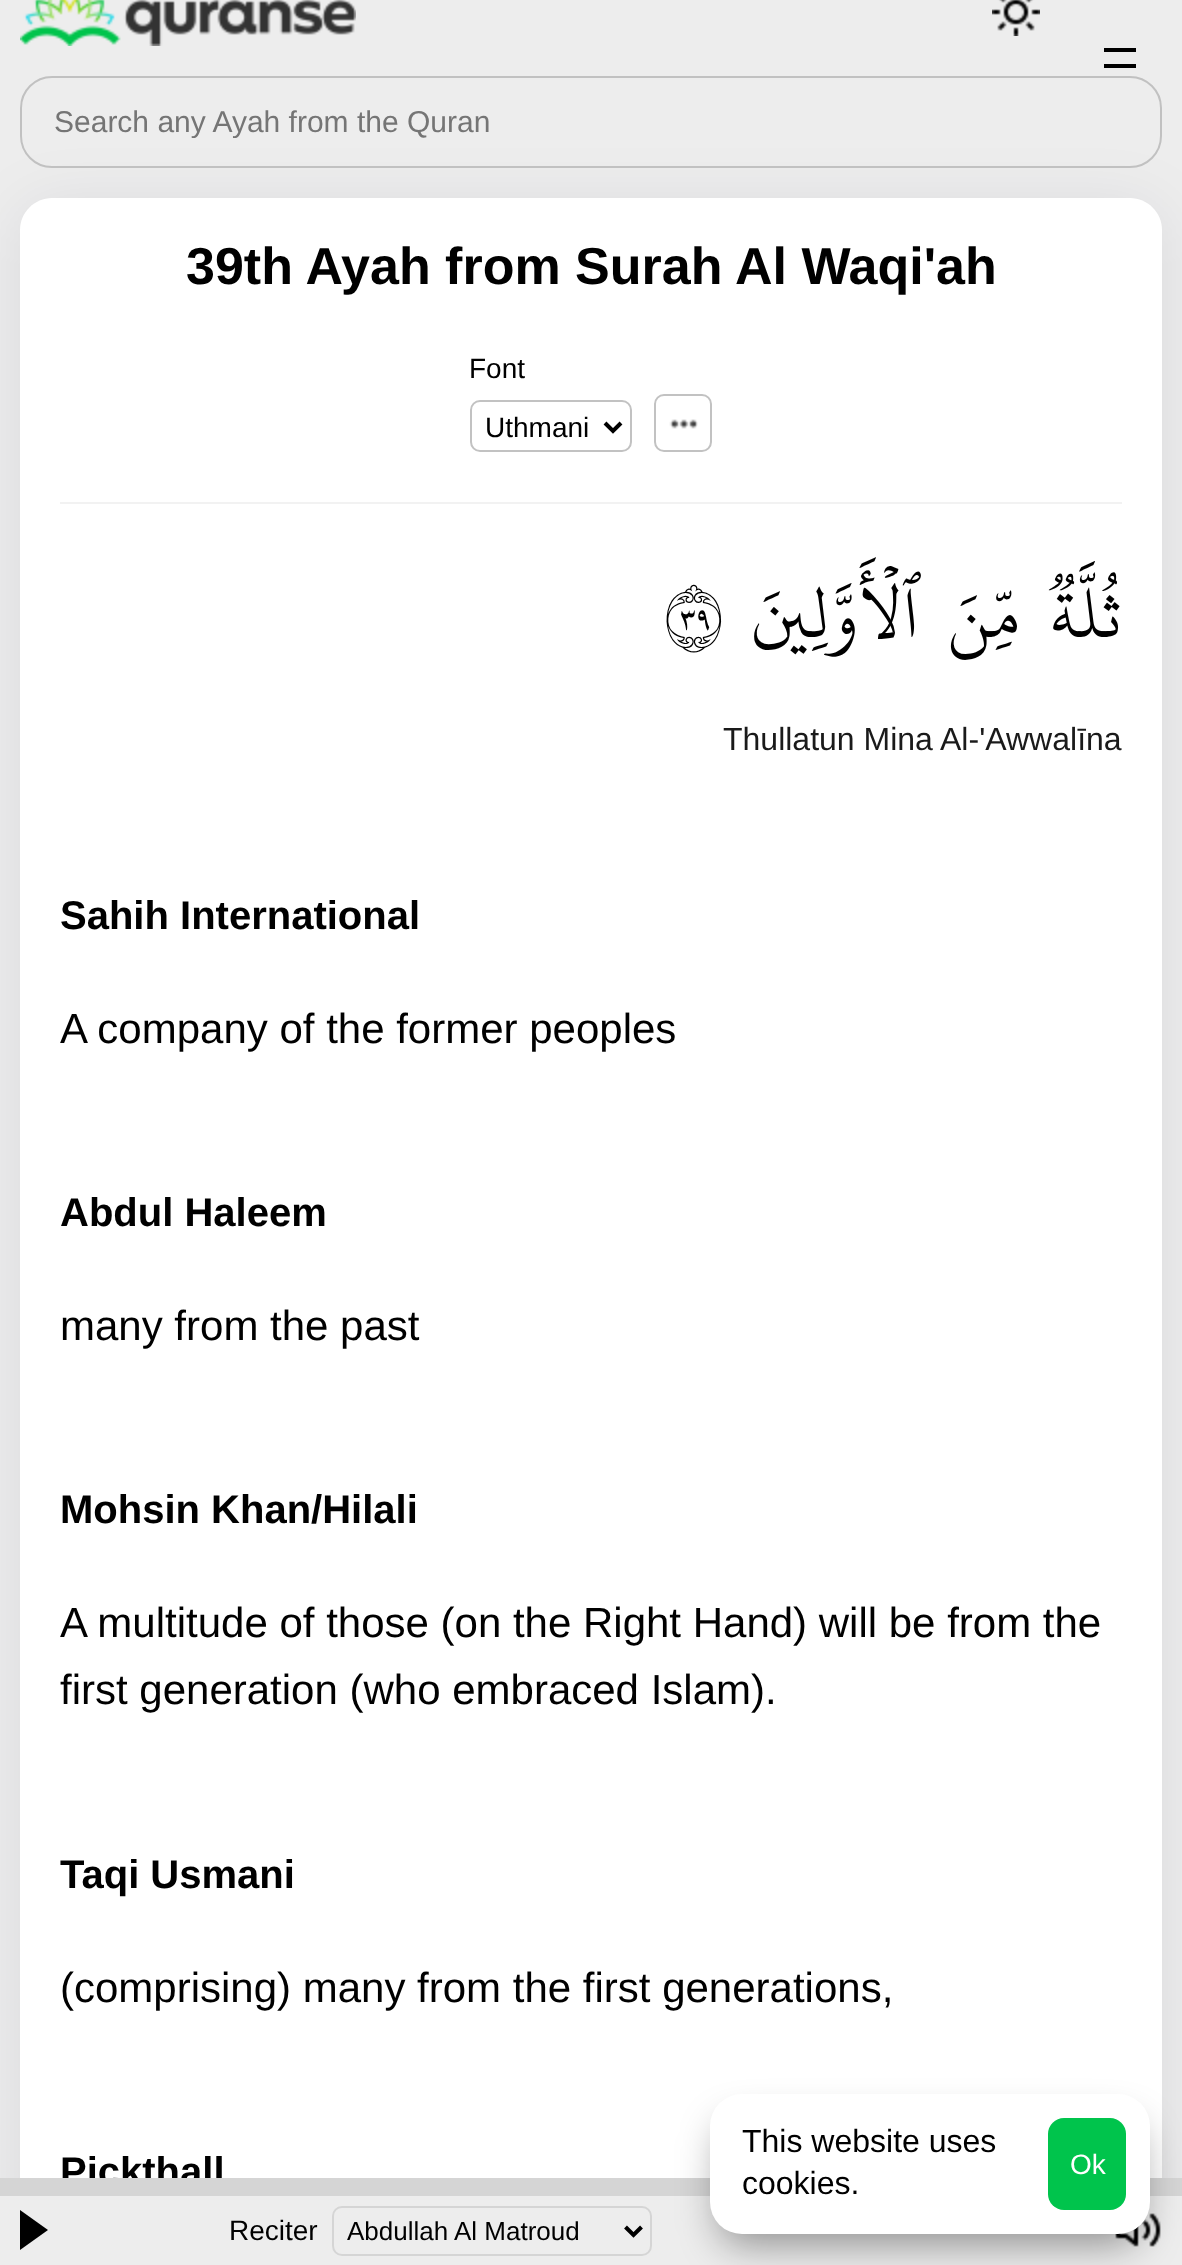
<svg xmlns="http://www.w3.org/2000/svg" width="1182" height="2265">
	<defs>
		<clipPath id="clip1"><rect x="54" y="104" width="1046" height="34" /></clipPath>
	</defs>
	<rect width="100%" height="100%" fill="#EDEDED" />
	<image x="20" y="0" width="336" height="46" href="assets/img1.png" />
	<image x="992" y="0" width="48" height="36" href="assets/img2.png" />
	<rect x="1104" y="48" width="32" height="4" fill="#000000" />
	<rect x="1104" y="64" width="32" height="4" fill="#000000" />
	<rect x="20" y="206" width="1142" height="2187" rx="32" fill="#121124" fill-opacity="0.08" filter="blur(32px)" />
	<rect x="21" y="77" width="1140" height="90" rx="31" fill="none" stroke="#C1C1C1" stroke-width="2" />
	<g clip-path="url(#clip1)">
		<text x="54" y="132" font-family="Liberation Sans" font-size="30" fill="#757575">Search any Ayah from the Quran</text>
	</g>
	<path d="M52 198H1130C1147.5 198 1162 212.5 1162 230V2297H20V230C20 212.5 34.5 198 52 198Z" fill="#FFFFFF" />
	<text x="186" y="284" font-family="Liberation Sans" font-size="52" font-weight="700" fill="#000000">39th Ayah from Surah Al Waqi'ah</text>
	<text x="469" y="378" font-family="Liberation Sans" font-size="28" fill="#000000">Font</text>
	<rect x="471" y="401" width="160" height="50" rx="9" fill="none" stroke="#C2C2C2" stroke-width="2" />
	<path d="M605 423L613 431L621 423" fill="none" stroke="#000000" stroke-width="4" />
	<text x="485" y="437" font-family="Liberation Sans" font-size="28" fill="#000000">Uthmani</text>
	<rect x="655" y="395" width="56" height="56" rx="9" fill="none" stroke="#C2C2C2" stroke-width="2" />
	<image x="669" y="419" width="29" height="10" href="assets/img3.png" />
	<rect x="60" y="502" width="1062" height="2" fill="#F2F2F2" />
	<text x="665" y="637" font-family="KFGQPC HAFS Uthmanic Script" font-size="76" fill="#000000">٣٩</text>
	<g font-family="KFGQPC HAFS Uthmanic Script" font-size="76" direction="rtl" fill="#000000">
		<text x="919" y="637">ٱلۡأَوَّلِينَ</text>
		<text x="1020" y="637">مِّنَ</text>
		<text x="1122" y="637">ثُلَّةٞ</text>
	</g>
	<text x="723" y="750" font-family="Liberation Sans" font-size="32" fill="#1A1A1A">Thullatun Mina Al-'Awwalīna</text>
	<text x="60" y="929" font-family="Liberation Sans" font-size="40" font-weight="700" fill="#000000">Sahih International</text>
	<text x="60" y="1043" font-family="Liberation Sans" font-size="42" fill="#000000">A company of the former peoples</text>
	<text x="60" y="1226" font-family="Liberation Sans" font-size="40" font-weight="700" fill="#000000">Abdul Haleem</text>
	<text x="60" y="1340" font-family="Liberation Sans" font-size="42" fill="#000000">many from the past</text>
	<text x="60" y="1523" font-family="Liberation Sans" font-size="40" font-weight="700" fill="#000000">Mohsin Khan/Hilali</text>
	<g font-family="Liberation Sans" font-size="42" fill="#000000">
		<text x="60" y="1637">A multitude of those (on the Right Hand) will be from the</text>
		<text x="60" y="1704">first generation (who embraced Islam).</text>
	</g>
	<text x="60" y="1888" font-family="Liberation Sans" font-size="40" font-weight="700" fill="#000000">Taqi Usmani</text>
	<text x="60" y="2002" font-family="Liberation Sans" font-size="42" fill="#000000">(comprising) many from the first generations,</text>
	<text x="60" y="2185" font-family="Liberation Sans" font-size="40" font-weight="700" fill="#000000">Pickthall</text>
	<rect x="0" y="2196" width="1182" height="69" fill="#EDEDED" />
	<rect x="0" y="2178" width="1182" height="18" fill="#D5D5D5" />
	<path d="M20 2250V2210L48 2230Z" fill="#000000" />
	<text x="229" y="2240" font-family="Liberation Sans" font-size="28" fill="#000000">Reciter</text>
	<rect x="333" y="2207" width="318" height="48" rx="9" fill="none" stroke="#D5D5D5" stroke-width="2" />
	<path d="M625.5 2227L633.5 2235L641.5 2227" fill="none" stroke="#000000" stroke-width="4" />
	<text x="347" y="2240" font-family="Liberation Sans" font-size="26" fill="#000000">Abdullah Al Matroud</text>
	<image x="1115" y="2213" width="46" height="34" href="assets/img4.png" />
	<rect x="720" y="2124" width="420" height="120" rx="22" fill="#000000" fill-opacity="0.4" filter="blur(20px)" />
	<rect x="710" y="2094" width="440" height="140" rx="32" fill="#FFFFFF" />
	<g font-family="Liberation Sans" font-size="32" fill="#000000">
		<text x="742" y="2152">This website uses</text>
		<text x="742" y="2194">cookies.</text>
	</g>
	<rect x="1048" y="2118" width="78" height="92" rx="16" fill="#00C44C" />
	<text x="1070" y="2174" font-family="Liberation Sans" font-size="28" fill="#FFFFFF">Ok</text>
</svg>
